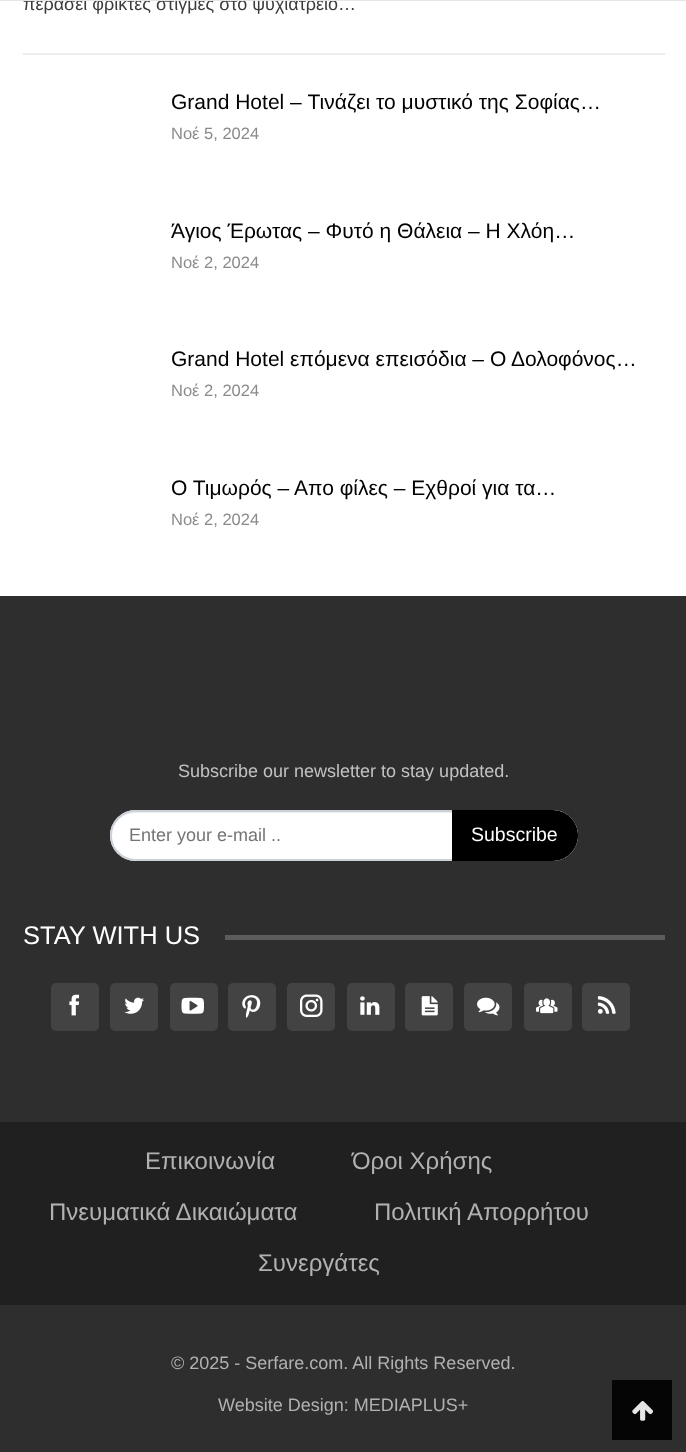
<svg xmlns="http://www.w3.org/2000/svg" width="686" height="1452">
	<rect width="100%" height="100%" fill="#FFFFFF" />
	<text x="23" y="10" font-family="Liberation Sans" font-size="18" fill="#3B3B3B">περάσει φρικτές στιγμές στο ψυχιατρείο…</text>
	<rect x="0" y="0" width="686" height="1" fill="#E5E5E5" />
	<rect x="23" y="53" width="642" height="2" fill="#EDEDED" />
	<text x="171" y="109" font-family="Liberation Sans" font-size="21" fill="#010101">Grand Hotel – Τινάζει το μυστικό της Σοφίας…</text>
	<text x="171" y="139" font-family="Liberation Sans" font-size="16.5" fill="#8A8A8A">Νοέ 5, 2024</text>
	<text x="171" y="238" font-family="Liberation Sans" font-size="21" fill="#010101">Άγιος Έρωτας – Φυτό η Θάλεια – Η Χλόη…</text>
	<text x="171" y="268" font-family="Liberation Sans" font-size="16.5" fill="#8A8A8A">Νοέ 2, 2024</text>
	<text x="171" y="366" font-family="Liberation Sans" font-size="21" fill="#010101">Grand Hotel επόμενα επεισόδια – Ο Δολοφόνος…</text>
	<text x="171" y="396" font-family="Liberation Sans" font-size="16.5" fill="#8A8A8A">Νοέ 2, 2024</text>
	<text x="171" y="495" font-family="Liberation Sans" font-size="21" fill="#010101">Ο Τιμωρός – Απο φίλες – Εχθροί για τα…</text>
	<text x="171" y="525" font-family="Liberation Sans" font-size="16.5" fill="#8A8A8A">Νοέ 2, 2024</text>
	<rect x="0" y="596" width="686" height="856" fill="#2E2E2E" />
	<text x="178" y="777" font-family="Liberation Sans" font-size="18" fill="#C2C2C2">Subscribe our newsletter to stay updated.</text>
	<rect x="110" y="810" width="468" height="51" rx="25.5" fill="#FFFFFF" />
	<path d="M135 813H552C565 813 576 824 576 837C576 823 565 812 552 812H135C122 812 111 823 111 837C111 824 122 813 135 813Z" fill="#ECECEC" />
	<rect x="111" y="811" width="466" height="49" rx="24.5" fill="none" stroke="#CBD1D8" stroke-width="2" />
	<text x="129" y="841" font-family="Liberation Sans" font-size="18" fill="#757575">Enter your e-mail ..</text>
	<path d="M452 810H552.5C566.5 810 578 821.5 578 835.5C578 849.5 566.5 861 552.5 861H452Z" fill="#000000" />
	<text x="471" y="841" font-family="Liberation Sans" font-size="19.5" fill="#FFFFFF">Subscribe</text>
	<text x="23" y="944" font-family="Liberation Sans" font-size="25.5" fill="#FFFFFF">STAY WITH US</text>
	<rect x="225" y="935" width="440" height="5" fill="#5C5C5C" />
	<rect x="51" y="983" width="48" height="48" rx="5" fill="#434343" />
	<image x="69" y="994" width="11" height="22" href="assets/img1.png" />
	<rect x="110" y="983" width="48" height="48" rx="5" fill="#434343" />
	<image x="124" y="997" width="20" height="17" href="assets/img2.png" />
	<rect x="170" y="983" width="48" height="48" rx="5" fill="#434343" />
	<image x="181" y="997" width="23" height="17" href="assets/img3.png" />
	<rect x="228" y="983" width="48" height="48" rx="5" fill="#434343" />
	<image x="242" y="995" width="19" height="23" href="assets/img4.png" />
	<rect x="287" y="983" width="48" height="48" rx="5" fill="#434343" />
	<image x="300" y="994" width="23" height="23" href="assets/img5.png" />
	<rect x="347" y="983" width="48" height="48" rx="5" fill="#434343" />
	<image x="360" y="996" width="20" height="19" href="assets/img6.png" />
	<rect x="405" y="983" width="48" height="48" rx="5" fill="#434343" />
	<image x="421" y="996" width="17" height="20" href="assets/img7.png" />
	<rect x="464" y="983" width="48" height="48" rx="5" fill="#434343" />
	<image x="477" y="997" width="23" height="19" href="assets/img8.png" />
	<rect x="524" y="983" width="48" height="48" rx="5" fill="#434343" />
	<image x="536" y="998" width="22" height="16" href="assets/img9.png" />
	<rect x="582" y="983" width="48" height="48" rx="5" fill="#434343" />
	<image x="597" y="996" width="19" height="18" href="assets/img10.png" />
	<rect x="0" y="1122" width="686" height="183" fill="#202020" />
	<g font-family="Liberation Sans" font-size="24" fill="#B1B1B1">
		<text x="145" y="1169">Επικοινωνία</text>
		<text x="352" y="1169">Όροι Χρήσης</text>
		<text x="49" y="1220">Πνευματικά Δικαιώματα</text>
		<text x="374" y="1220">Πολιτική Απορρήτου</text>
		<text x="258" y="1271">Συνεργάτες</text>
	</g>
	<g font-family="Liberation Sans" font-size="18" fill="#B1B1B1">
		<text x="171" y="1369">© 2025 - Serfare.com. All Rights Reserved.</text>
		<text x="218" y="1411">Website Design: MEDIAPLUS+</text>
	</g>
	<rect x="612" y="1380" width="60" height="60" fill="#050505" />
	<image x="632" y="1401" width="22" height="20" href="assets/img11.png" />
</svg>
